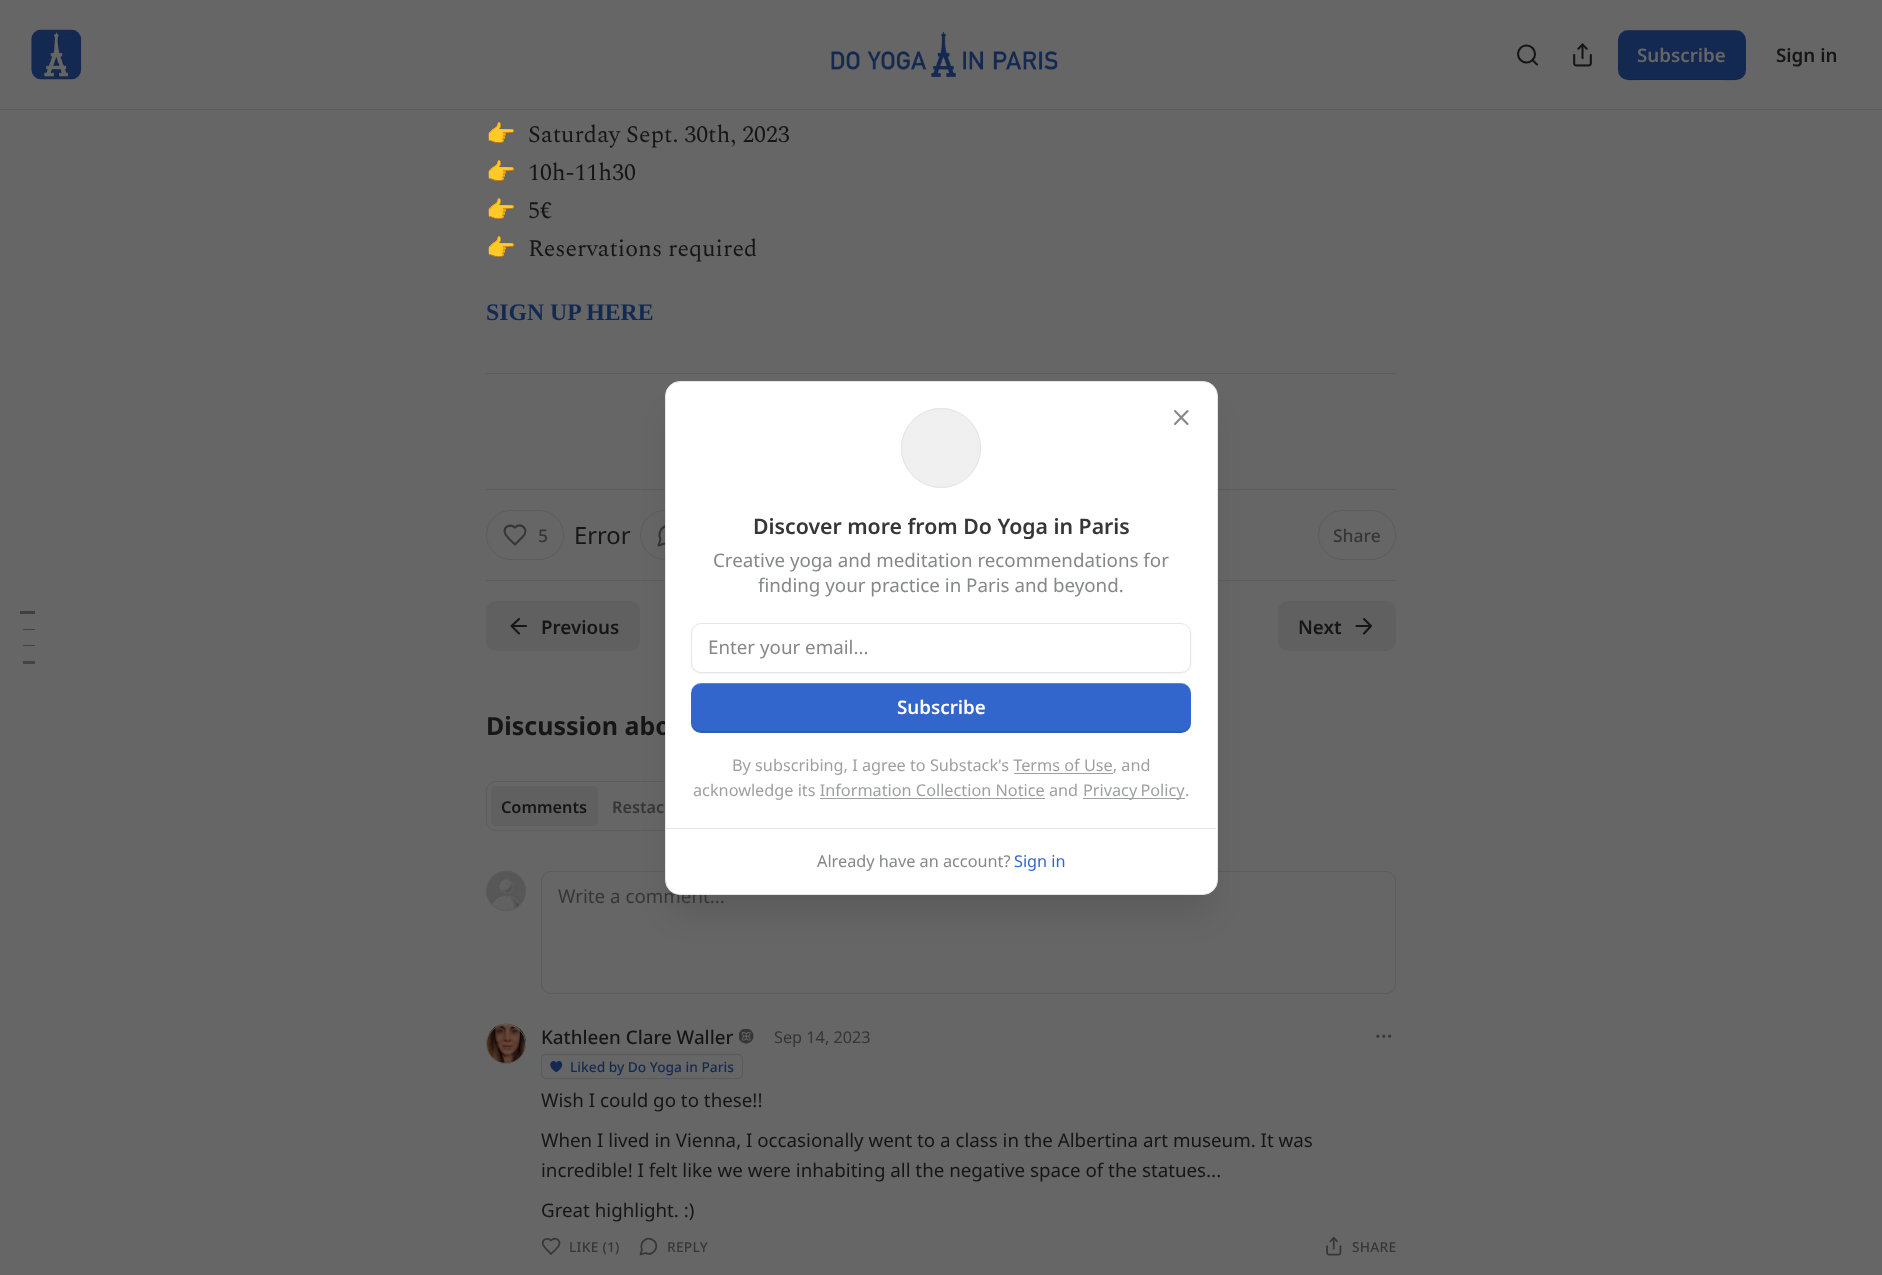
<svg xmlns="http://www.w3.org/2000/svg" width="1882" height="1275">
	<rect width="100%" height="100%" fill="#666666" />
	<rect x="0" y="109" width="1882" height="1" fill="#5C5C5C" />
	<image x="31" y="29" width="51" height="51" href="assets/img1.png" />
	<image x="831" y="32" width="227" height="45" href="assets/img2.png" />
	<circle cx="1526.5" cy="54" r="8.5" fill="none" stroke="#161616" stroke-width="2.1" />
	<path d="M1537 64.5L1532.5 60" fill="none" stroke="#161616" stroke-width="2.1" stroke-linecap="round" stroke-linejoin="round" />
	<image x="1573" y="43" width="19" height="24" href="assets/img3.png" />
	<rect x="1618" y="30" width="128" height="50" rx="10" fill="#142952" />
	<path d="M1618 69C1618 84 1636 80 1646 80H1718C1728 80 1746 84 1746 69C1746 74 1742 79 1736 79H1628C1622 79 1618 74 1618 69Z" fill="#000000" fill-opacity="0.1" />
	<path d="M1628 31H1736C1742 31 1746 36 1746 41C1746 26 1728 30 1718 30H1646C1636 30 1618 26 1618 41C1618 36 1622 31 1628 31Z" fill="#666666" fill-opacity="0.2" />
	<text x="1637" y="62" font-family="Noto Sans" font-size="18.75" font-weight="600" fill="#666666">Subscribe</text>
	<text x="1776" y="62" font-family="Noto Sans" font-size="18.75" font-weight="600" fill="#161616">Sign in</text>
	<text x="486" y="142" font-family="Noto Color Emoji" font-size="23.75" fill="#161616">👉</text>
	<text x="528" y="142" font-family="Spectral" font-size="23.75" fill="#161616">Saturday Sept. 30th, 2023</text>
	<text x="486" y="180" font-family="Noto Color Emoji" font-size="23.75" fill="#161616">👉</text>
	<text x="528" y="180" font-family="Spectral" font-size="23.75" fill="#161616">10h-11h30</text>
	<text x="486" y="218" font-family="Noto Color Emoji" font-size="23.75" fill="#161616">👉</text>
	<text x="528" y="218" font-family="Spectral" font-size="23.75" fill="#161616">5€</text>
	<text x="486" y="256" font-family="Noto Color Emoji" font-size="23.75" fill="#161616">👉</text>
	<text x="528" y="256" font-family="Spectral" font-size="23.75" fill="#161616">Reservations required</text>
	<text x="486" y="320" font-family="Liberation Serif" font-size="23.75" font-weight="700" fill="#142952">SIGN UP HERE</text>
	<rect x="486" y="373" width="910" height="1" fill="#5C5C5C" />
	<rect x="486" y="489" width="910" height="1" fill="#5C5C5C" />
	<rect x="486" y="580" width="910" height="1" fill="#5C5C5C" />
	<rect x="486.5" y="510.5" width="77" height="49" rx="24.5" fill="none" stroke="#5C5C5C" />
	<path d="M522.5 537C530 529.5 521 521.5 515 527.5C510.5 523.5 503 526.5 505 533C506 536.5 512.5 542 515 544.5Z" fill="none" stroke="#363636" stroke-width="2.1" stroke-linecap="round" stroke-linejoin="round" />
	<text x="538" y="542" font-family="Noto Sans" font-size="17.5" font-weight="500" fill="#363636">5</text>
	<text x="574" y="544" font-family="Noto Sans" font-size="23.75" fill="#161616">Error</text>
	<rect x="640.5" y="510.5" width="77" height="49" rx="24.5" fill="none" stroke="#5C5C5C" />
	<path d="M664.5 543.5C675.5 549 684 531.5 672.5 526.5C670 525.5 667 525.5 664.5 526.5C660 529 658 534.5 660.5 539.5L658.5 545.5Z" fill="none" stroke="#363636" stroke-width="2.1" stroke-linecap="round" stroke-linejoin="round" />
	<rect x="1318.5" y="510.5" width="77" height="49" rx="24.5" fill="none" stroke="#5C5C5C" />
	<text x="1333" y="542" font-family="Noto Sans" font-size="17.5" font-weight="500" fill="#363636">Share</text>
	<rect x="20" y="611" width="15" height="3" fill="#3F4040" />
	<rect x="23" y="629" width="12" height="1" fill="#434343" />
	<rect x="23" y="645" width="12" height="1" fill="#434343" />
	<rect x="23" y="661" width="12" height="3" fill="#434343" />
	<rect x="486" y="601" width="154" height="50" rx="10" fill="#606060" />
	<path d="M519 633.5L511.5 626L519 619M526 626H511.5" fill="none" stroke="#161616" stroke-width="2.1" stroke-linecap="round" stroke-linejoin="round" />
	<text x="541" y="634" font-family="Noto Sans" font-size="18.75" font-weight="600" fill="#161616">Previous</text>
	<rect x="1278" y="601" width="118" height="50" rx="10" fill="#606060" />
	<text x="1298" y="634" font-family="Noto Sans" font-size="18.75" font-weight="600" fill="#161616">Next</text>
	<path d="M1356.5 626H1371M1364 619L1371 626L1364 633.5" fill="none" stroke="#161616" stroke-width="2.1" stroke-linecap="round" stroke-linejoin="round" />
	<rect x="486.5" y="781.5" width="211" height="49" rx="9.5" fill="none" stroke="#5C5C5C" />
	<rect x="541.5" y="871.5" width="854" height="122" rx="9.5" fill="none" stroke="#5C5C5C" />
	<rect x="671" y="413" width="540" height="501" rx="9" fill="#000000" fill-opacity="0.1" filter="blur(15.5px)" />
	<text x="486" y="735" font-family="Noto Sans" font-size="25" font-weight="700" fill="#161616">Discussion abo</text>
	<text x="558" y="903" font-family="Noto Sans" font-size="18.75" fill="#363636">Write a comment...</text>
	<rect x="665.5" y="381.5" width="552" height="513" rx="14.5" fill="#FFFFFF" stroke="#E6E6E6" />
	<circle cx="941" cy="448" r="39.5" fill="none" stroke="#E6E6E6" />
	<circle cx="941" cy="448" r="39.5" fill="#F0F0F0" stroke="#E6E6E6" />
	<path d="M1187.5 411L1175 424M1175 411L1187.5 424" fill="none" stroke="#868787" stroke-width="2.1" stroke-linecap="round" stroke-linejoin="round" />
	<text x="753" y="534" font-family="Noto Sans" font-size="21.25" font-weight="600" fill="#363636">Discover more from Do Yoga in Paris</text>
	<g font-family="Noto Sans" font-size="18.75" fill="#868787">
		<text x="713" y="567">Creative yoga and meditation recommendations for</text>
		<text x="758" y="592">finding your practice in Paris and beyond.</text>
	</g>
	<rect x="691" y="624" width="500" height="50" rx="10" fill="#000000" fill-opacity="0.05" filter="blur(1px)" />
	<rect x="691.5" y="623.5" width="499" height="49" rx="9.5" fill="#FFFFFF" stroke="#E6E6E6" />
	<text x="708" y="654" font-family="Noto Sans" font-size="18.75" fill="#868787">Enter your email...</text>
	<rect x="691" y="683" width="500" height="50" rx="10" fill="#3366CC" />
	<path d="M691 721V723C691 729 695 733 701 733H1181C1187 733 1191 729 1191 723V721C1191 727 1187 731 1181 731H701C696 731 691 727 691 721Z" fill="#000000" fill-opacity="0.1" />
	<path d="M701 684H1181C1187 684 1191 688 1191 694V693C1191 687 1187 683 1181 683H701C695 683 691 687 691 693V694C691 688 696 684 701 684Z" fill="#FFFFFF" fill-opacity="0.2" />
	<text x="897" y="714" font-family="Noto Sans" font-size="18.75" font-weight="600" fill="#FFFFFF">Subscribe</text>
	<text x="732" y="771" font-family="Noto Sans" font-size="16.25" fill="#9E9F9F">By subscribing, I agree to Substack's Terms of Use, and</text>
	<rect x="1014" y="773" width="99" height="1" fill="#9E9F9F" />
	<text x="693" y="796" font-family="Noto Sans" font-size="16.25" fill="#9E9F9F">acknowledge its Information Collection Notice and</text>
	<rect x="1083" y="798" width="102" height="1" fill="#9E9F9F" />
	<g font-family="Noto Sans" font-size="16.25" fill="#9E9F9F">
		<text x="1083" y="796" word-spacing="-1">Privacy Policy</text>
		<text x="1185" y="796">.</text>
	</g>
	<rect x="820" y="798" width="225" height="1" fill="#9E9F9F" />
	<rect x="666" y="828" width="550" height="1" fill="#E6E6E6" />
	<text x="817" y="867" font-family="Noto Sans" font-size="16.25" fill="#868787">Already have an account?</text>
	<text x="1014" y="867" font-family="Noto Sans" font-size="16.25" fill="#3366CC">Sign in</text>
	<rect x="491" y="786" width="107" height="40" rx="5" fill="#606060" />
	<text x="501" y="813" font-family="Noto Sans" font-size="16.25" font-weight="600" fill="#161616">Comments</text>
	<text x="612" y="813" font-family="Noto Sans" font-size="16.25" font-weight="600" fill="#363636">Restac</text>
	<circle cx="506" cy="891" r="19.5" fill="none" stroke="#5C5C5C" />
	<image x="486" y="871" width="40" height="39" href="assets/img4.png" />
	<circle cx="506" cy="891" r="19.5" fill="none" stroke="#5C5C5C" />
	<circle cx="506" cy="1044" r="19.5" fill="none" stroke="#5C5C5C" />
	<image x="486" y="1023" width="40" height="40" href="assets/img5.png" />
	<circle cx="506" cy="1044" r="19.5" fill="none" stroke="#5C5C5C" />
	<text x="541" y="1044" font-family="Noto Sans" font-size="18.75" font-weight="500" fill="#161616">Kathleen Clare Waller</text>
	<image x="739" y="1029" width="15" height="15" href="assets/img6.png" />
	<text x="774" y="1043" font-family="Noto Sans" font-size="16.25" fill="#363636">Sep 14, 2023</text>
	<rect x="541.5" y="1054.5" width="201" height="24" rx="4.5" fill="none" stroke="#565A62" />
	<image x="550" y="1061" width="13" height="12" href="assets/img7.png" />
	<text x="570" y="1072" font-family="Noto Sans" font-size="13.75" font-weight="500" fill="#142952">Liked by Do Yoga in Paris</text>
	<circle cx="1383.8" cy="1036.2" r="0.8" fill="none" stroke="#3A3A3A" stroke-width="1.7" />
	<circle cx="1389.6" cy="1036.2" r="0.8" fill="none" stroke="#3A3A3A" stroke-width="1.7" />
	<circle cx="1377.9" cy="1036.2" r="0.8" fill="none" stroke="#3A3A3A" stroke-width="1.7" />
	<g font-family="Noto Sans" font-size="18.75" fill="#161616">
		<text x="541" y="1107">Wish I could go to these!!</text>
		<text x="541" y="1147">When I lived in Vienna, I occasionally went to a class in the Albertina art museum. It was</text>
		<text x="541" y="1177">incredible! I felt like we were inhabiting all the negative space of the statues...</text>
		<text x="541" y="1217">Great highlight. :)</text>
	</g>
	<path d="M557 1248C563.5 1242 556 1235.5 551 1240.5C548 1237 541.5 1239.5 543 1244.5C544 1247.5 549 1251.5 551 1254Z" fill="none" stroke="#363636" stroke-width="1.7" stroke-linecap="round" stroke-linejoin="round" />
	<text x="569" y="1252" font-family="Noto Sans" font-size="13.75" font-weight="500" letter-spacing="0.25" fill="#363636">LIKE (1)</text>
	<path d="M645.5 1253C654.5 1257.5 661 1243.5 652 1239.5C650 1238.5 647.5 1238.5 645.5 1239.5C642 1241.5 640 1246 642 1249.5L640.5 1254.5Z" fill="none" stroke="#363636" stroke-width="1.7" stroke-linecap="round" stroke-linejoin="round" />
	<text x="667" y="1252" font-family="Noto Sans" font-size="13.75" font-weight="500" letter-spacing="0.25" fill="#363636">REPLY</text>
	<image x="1326" y="1237" width="16" height="19" href="assets/img8.png" />
	<text x="1352" y="1252" font-family="Noto Sans" font-size="13.75" font-weight="500" letter-spacing="0.25" fill="#363636">SHARE</text>
</svg>
